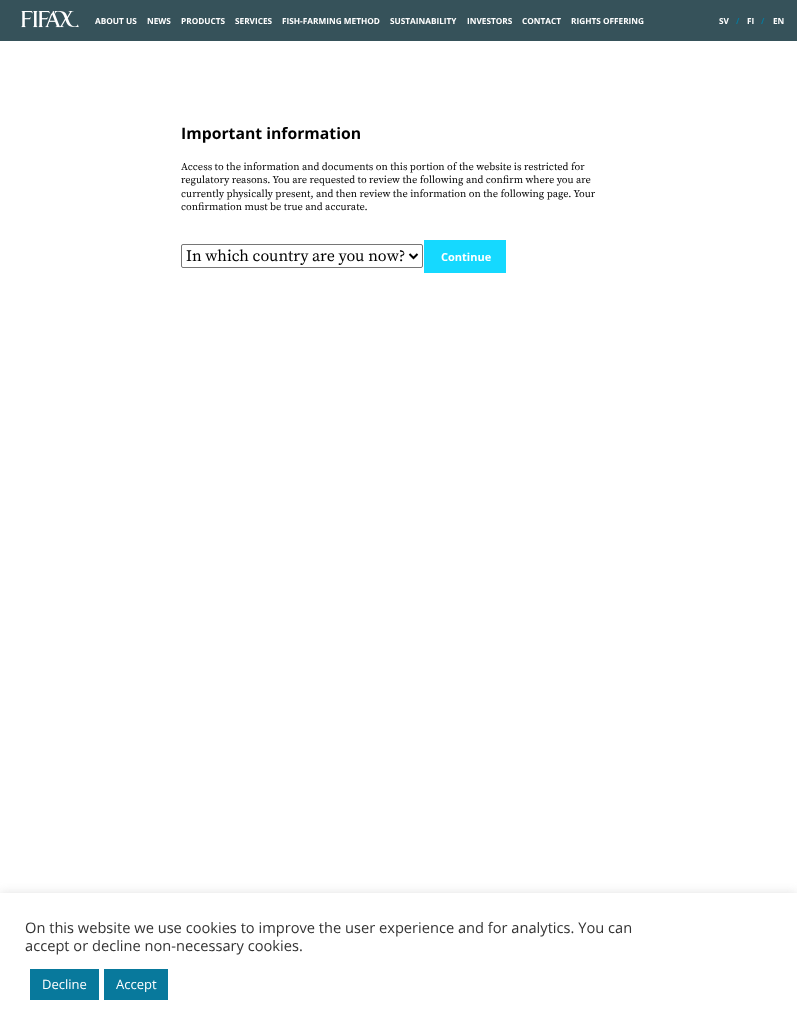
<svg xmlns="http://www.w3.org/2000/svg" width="797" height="1030">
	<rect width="100%" height="100%" fill="#FFFFFF" />
	<rect x="0" y="0" width="797" height="41" fill="#36525A" />
	<image x="21" y="11" width="58" height="17" href="assets/img1.png" />
	<g font-family="Open Sans" font-size="8.25" font-weight="700" fill="#FFFFFF">
		<text x="95" y="24">ABOUT US</text>
		<text x="147" y="24">NEWS</text>
		<text x="181" y="24">PRODUCTS</text>
		<text x="235" y="24">SERVICES</text>
		<text x="282" y="24">FISH-FARMING METHOD</text>
		<text x="390" y="24">SUSTAINABILITY</text>
		<text x="467" y="24">INVESTORS</text>
		<text x="522" y="24">CONTACT</text>
		<text x="571" y="24">RIGHTS OFFERING</text>
		<text x="719" y="24">SV</text>
	</g>
	<text x="736" y="24" font-family="Open Sans" font-size="8.25" font-weight="700" fill="#08799C">/</text>
	<text x="747" y="24" font-family="Open Sans" font-size="8.25" font-weight="700" fill="#FFFFFF">FI</text>
	<text x="761" y="24" font-family="Open Sans" font-size="8.25" font-weight="700" fill="#08799C">/</text>
	<text x="773" y="24" font-family="Open Sans" font-size="8.25" font-weight="700" fill="#FFFFFF">EN</text>
	<text x="181" y="139" font-family="Open Sans" font-size="15.75" font-weight="700" fill="#000000">Important information</text>
	<g font-family="Source Serif Pro" font-size="10.4" fill="#000000">
		<text x="181" y="170">Access to the information and documents on this portion of the website is restricted for</text>
		<text x="181" y="183">regulatory reasons. You are requested to review the following and confirm where you are</text>
		<text x="181" y="197">currently physically present, and then review the information on the following page. Your</text>
		<text x="181" y="210">confirmation must be true and accurate.</text>
	</g>
	<rect x="181.5" y="244.5" width="241" height="23" rx="1.5" fill="none" stroke="#767676" />
	<path d="M409.5 254L413.5 258L417.5 254" fill="none" stroke="#000000" stroke-width="2" />
	<text x="186" y="261" font-family="Source Serif Pro" font-size="16" fill="#000000">In which country are you now?</text>
	<rect x="424" y="240" width="82" height="33" fill="#15D9FF" />
	<text x="441" y="261" font-family="Open Sans" font-size="11" font-weight="700" fill="#FFFFFF">Continue</text>
	<rect x="0" y="892" width="797" height="137" fill="#ACABAB" fill-opacity="0.3" filter="blur(5px)" />
	<rect x="0" y="893" width="797" height="137" fill="#FFFFFF" />
	<g font-family="Open Sans" font-size="14.65" fill="#333333">
		<text x="25" y="933">On this website we use cookies to improve the user experience and for analytics. You can</text>
		<text x="25" y="951">accept or decline non-necessary cookies.</text>
	</g>
	<rect x="30" y="969" width="69" height="31" fill="#08799C" />
	<text x="42" y="989" font-family="Open Sans" font-size="13" fill="#FFFFFF">Decline</text>
	<rect x="104" y="969" width="64" height="31" fill="#08799C" />
	<text x="116" y="989" font-family="Open Sans" font-size="13" fill="#FFFFFF">Accept</text>
</svg>
